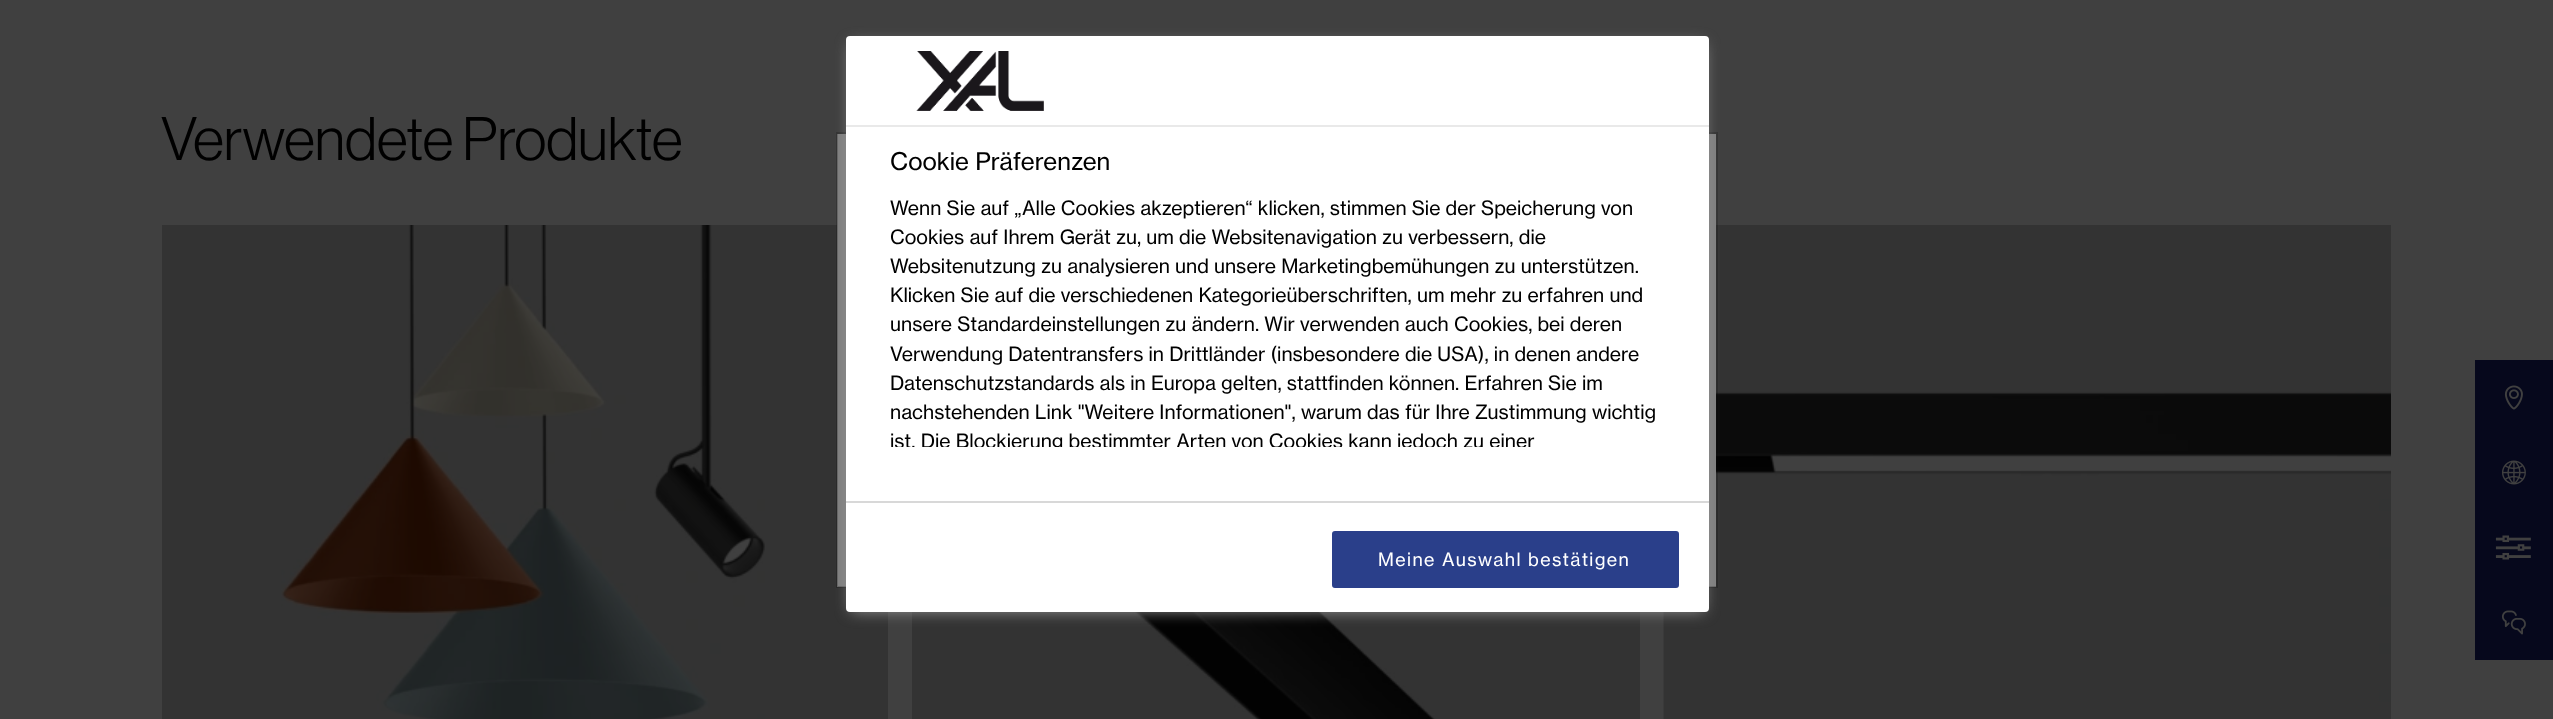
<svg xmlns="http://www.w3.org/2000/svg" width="2553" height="719">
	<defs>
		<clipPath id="clip1"><rect x="891" y="128" width="813" height="319" /></clipPath>
	</defs>
	<rect width="100%" height="100%" fill="#404040" />
	<text x="161" y="160" font-family="'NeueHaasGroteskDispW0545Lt'" font-size="60" fill="#000000">Verwendete Produkte</text>
	<rect x="162" y="225" width="726" height="494" fill="#333333" />
	<image x="281" y="225" width="484" height="494" href="assets/img1.png" />
	<rect x="912" y="612" width="728" height="107" fill="#333333" />
	<image x="1024" y="612" width="616" height="107" href="assets/img2.png" />
	<image x="1663" y="612" width="1" height="107" href="assets/img4.png" />
	<image x="1663" y="225" width="728" height="494" href="assets/img3.png" />
	<rect x="837" y="134" width="879" height="453" fill="#808080" />
	<rect x="837" y="133" width="880" height="454" fill="none" stroke="#000000" stroke-opacity="0.2" stroke-width="2" />
	<rect x="2475" y="360" width="78" height="300" fill="#06081C" />
	<image x="2504" y="385" width="19" height="25" href="assets/img5.png" />
	<image x="2501" y="460" width="25" height="25" href="assets/img6.png" />
	<image x="2495" y="535" width="36" height="25" href="assets/img7.png" />
	<image x="2501" y="610" width="25" height="25" href="assets/img8.png" />
	<rect x="851" y="44" width="853" height="567" fill="#999999" filter="blur(7.5px)" />
	<rect x="846" y="36" width="863" height="576" rx="4" fill="#FFFFFF" />
	<rect x="846" y="125" width="863" height="2" fill="#E9E9E9" />
	<image x="916" y="51" width="128" height="60" href="assets/img9.png" />
	<text x="890" y="170" font-family="'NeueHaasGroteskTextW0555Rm'" font-size="24" fill="#000000">Cookie Präferenzen</text>
	<g font-family="'NeueHaasGroteskTextW0555Rm'" font-size="19.5" fill="#000000">
		<text x="890" y="215">Wenn Sie auf „Alle Cookies akzeptieren“ klicken, stimmen Sie der Speicherung von</text>
		<text x="890" y="244">Cookies auf Ihrem Gerät zu, um die Websitenavigation zu verbessern, die</text>
		<text x="890" y="273">Websitenutzung zu analysieren und unsere Marketingbemühungen zu unterstützen.</text>
		<text x="890" y="302">Klicken Sie auf die verschiedenen Kategorieüberschriften, um mehr zu erfahren und</text>
		<text x="890" y="331">unsere Standardeinstellungen zu ändern. Wir verwenden auch Cookies, bei deren</text>
		<text x="890" y="361">Verwendung Datentransfers in Drittländer (insbesondere die USA), in denen andere</text>
		<text x="890" y="390">Datenschutzstandards als in Europa gelten, stattfinden können. Erfahren Sie im</text>
		<text x="890" y="419">nachstehenden Link "Weitere Informationen", warum das für Ihre Zustimmung wichtig</text>
	</g>
	<g clip-path="url(#clip1)">
		<text x="890" y="448" font-family="'NeueHaasGroteskTextW0555Rm'" font-size="19.5" fill="#000000">ist. Die Blockierung bestimmter Arten von Cookies kann jedoch zu einer</text>
	</g>
	<rect x="846" y="501" width="863" height="2" fill="#D8D8D8" />
	<rect x="1333" y="532" width="345" height="55" rx="2" fill="#2A3F8A" stroke="#2A3F8A" stroke-width="2" />
	<text x="1378" y="566" font-family="'NeueHaasGroteskTextW0555Rm'" font-size="18" letter-spacing="1.4" fill="#FFFFFF">Meine Auswahl bestätigen</text>
</svg>
